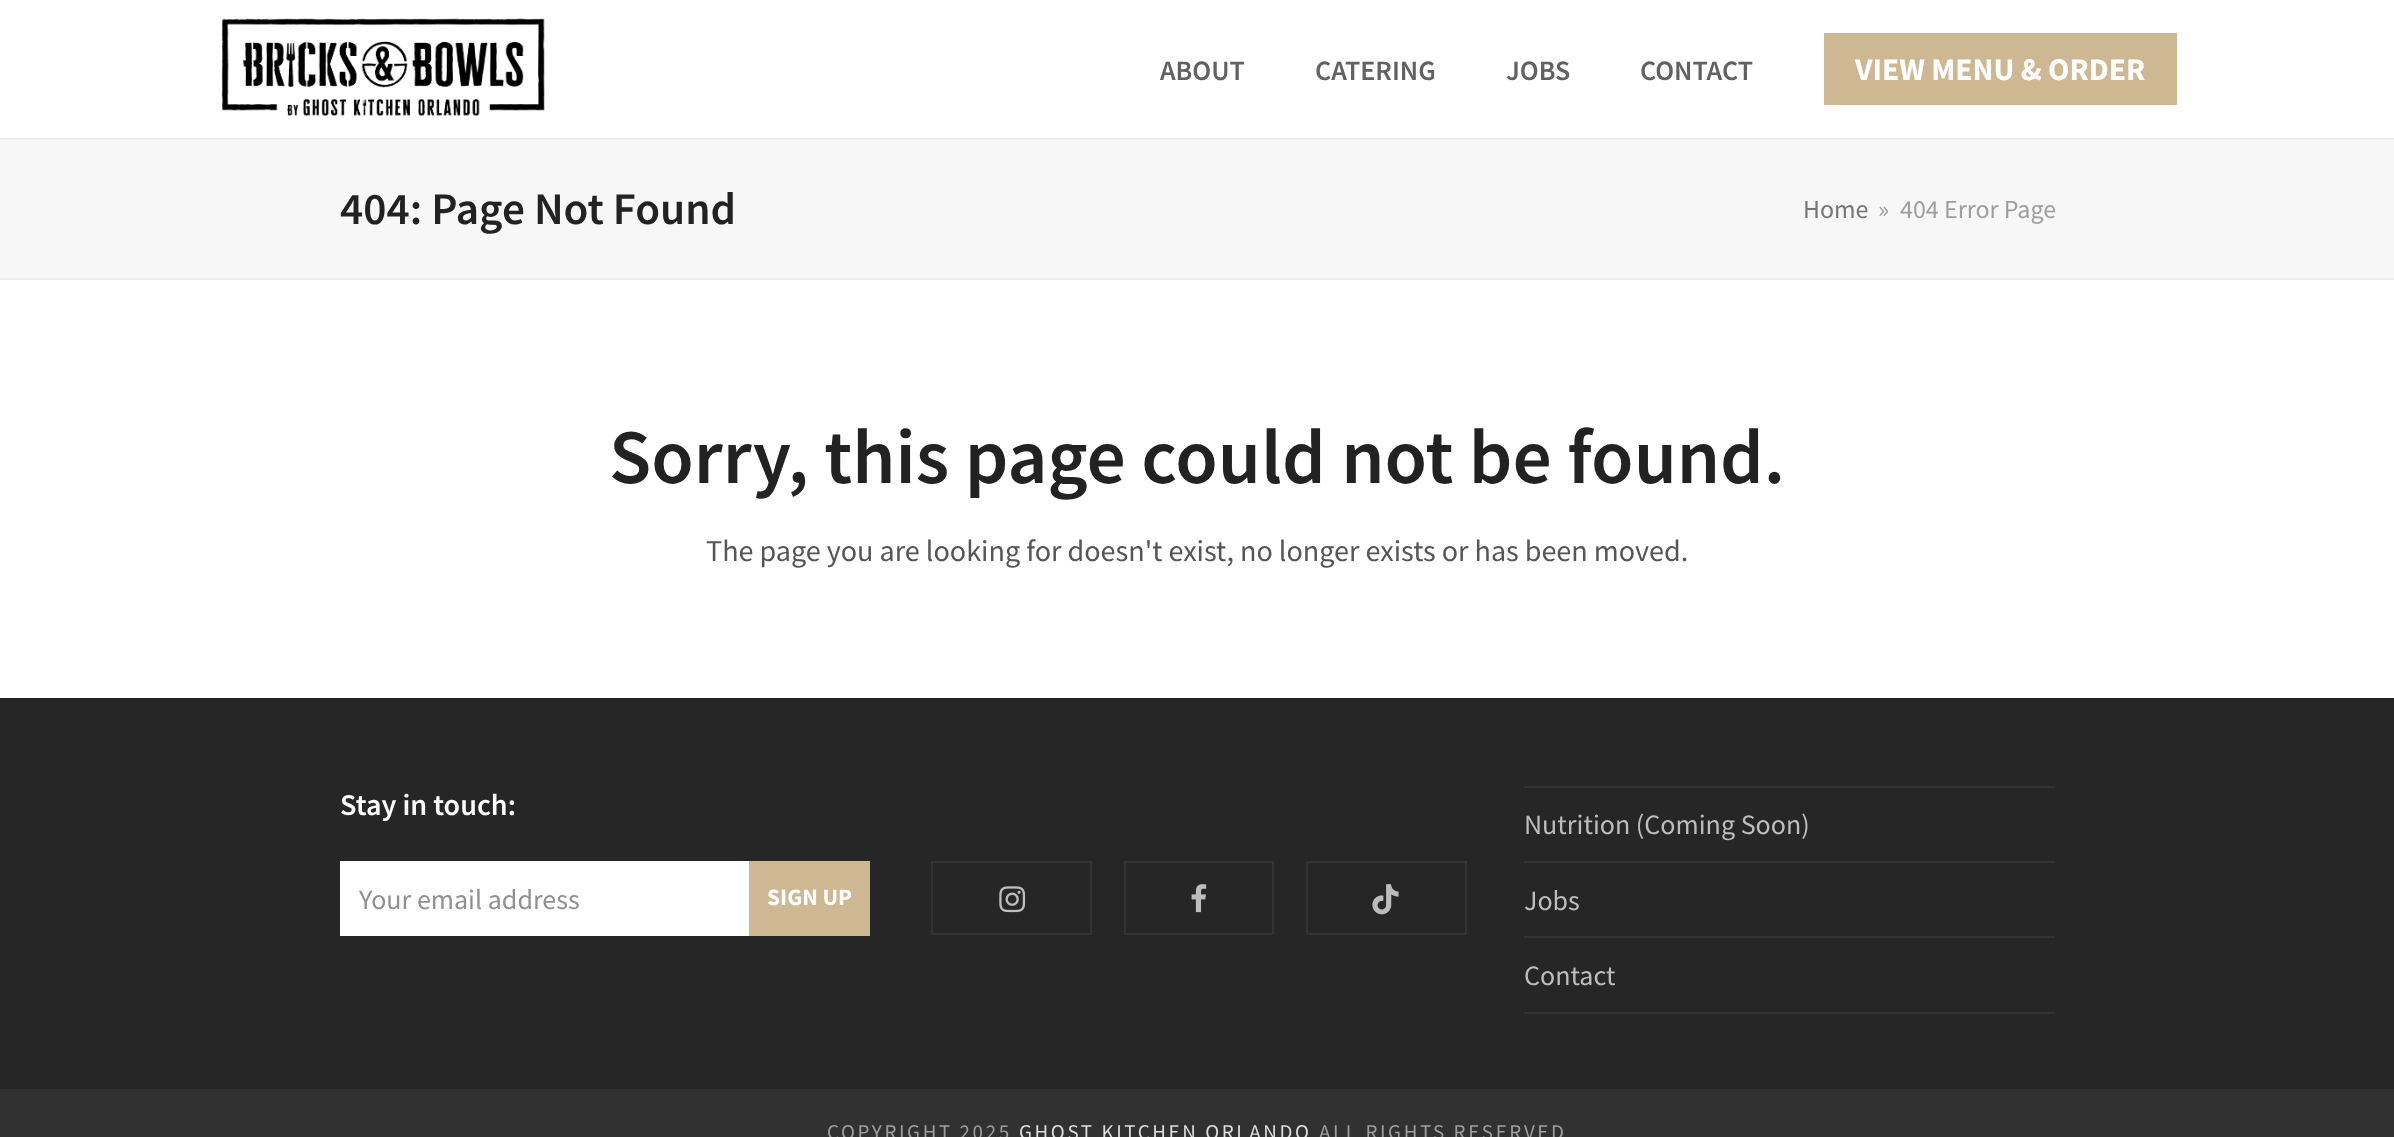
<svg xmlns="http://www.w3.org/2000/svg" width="2394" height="1137">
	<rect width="100%" height="100%" fill="#FFFFFF" />
	<image x="221" y="18" width="324" height="98" href="assets/img1.png" />
	<g font-family="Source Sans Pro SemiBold" font-size="28" font-weight="600" fill="#616161">
		<text x="1160" y="80">ABOUT</text>
		<text x="1315" y="80">CATERING</text>
		<text x="1506" y="80">JOBS</text>
		<text x="1640" y="80">CONTACT</text>
	</g>
	<rect x="1824" y="33" width="353" height="72" fill="#CEB793" />
	<text x="1855" y="80" font-family="Source Sans Pro" font-size="31.5" font-weight="700" fill="#FFFFFF">VIEW MENU &amp; ORDER</text>
	<rect x="0" y="140" width="2394" height="138" fill="#F7F7F7" />
	<rect x="0" y="138" width="2394" height="2" fill="#EEEEEE" />
	<rect x="0" y="278" width="2394" height="2" fill="#EEEEEE" />
	<text x="340" y="224" font-family="Source Sans Pro SemiBold" font-size="45.25" font-weight="600" fill="#222222">404: Page Not Found</text>
	<text x="1803" y="218" font-family="Source Sans Pro" font-size="26" fill="#757575">Home</text>
	<g font-family="Source Sans Pro" font-size="26" fill="#9E9E9E">
		<text x="1878" y="218">»</text>
		<text x="1900" y="218">404 Error Page</text>
	</g>
	<text x="609" y="483" font-family="Source Sans Pro SemiBold" font-size="77.5" font-weight="600" fill="#222222">Sorry, this page could not be found.</text>
	<text x="706" y="561" font-family="Source Sans Pro" font-size="30.15" fill="#555555">The page you are looking for doesn't exist, no longer exists or has been moved.</text>
	<rect x="0" y="698" width="2394" height="391" fill="#262626" />
	<text x="340" y="815" font-family="Source Sans Pro SemiBold" font-size="30.15" font-weight="600" fill="#FFFFFF">Stay in touch:</text>
	<rect x="340" y="861" width="409" height="75" fill="#FFFFFF" />
	<text x="359" y="909" font-family="Source Sans Pro" font-size="28" fill="#909090">Your email address</text>
	<rect x="749" y="861" width="121" height="75" fill="#CEB793" />
	<text x="767" y="905" font-family="Source Sans Pro" font-size="23.5" font-weight="700" fill="#FFFFFF">SIGN UP</text>
	<rect x="932" y="862" width="159" height="72" fill="none" stroke="#333333" stroke-width="2" />
	<image x="999" y="886" width="27" height="27" href="assets/img2.png" />
	<rect x="1125" y="862" width="148" height="72" fill="none" stroke="#333333" stroke-width="2" />
	<image x="1191" y="884" width="16" height="29" href="assets/img3.png" />
	<rect x="1307" y="862" width="159" height="72" fill="none" stroke="#333333" stroke-width="2" />
	<image x="1372" y="884" width="27" height="31" href="assets/img4.png" />
	<rect x="1524" y="786" width="531" height="2" fill="#333333" />
	<rect x="1524" y="861" width="531" height="2" fill="#333333" />
	<text x="1524" y="834" font-family="Source Sans Pro" font-size="28" fill="#BDBDBD">Nutrition (Coming Soon)</text>
	<rect x="1524" y="936" width="531" height="2" fill="#333333" />
	<text x="1524" y="910" font-family="Source Sans Pro" font-size="28" fill="#BDBDBD">Jobs</text>
	<rect x="1524" y="1012" width="531" height="2" fill="#333333" />
	<text x="1524" y="985" font-family="Source Sans Pro" font-size="28" fill="#BDBDBD">Contact</text>
	<rect x="0" y="1089" width="2394" height="48" fill="#313131" />
	<text x="827" y="1139" font-family="Source Sans Pro" font-size="21" letter-spacing="2.6" fill="#9E9E9E">COPYRIGHT 2025</text>
	<text x="1019" y="1139" font-family="Source Sans Pro" font-size="21" letter-spacing="2.6" fill="#DDDDDD">GHOST KITCHEN ORLANDO</text>
	<text x="1319" y="1139" font-family="Source Sans Pro" font-size="21" letter-spacing="2.6" fill="#9E9E9E">ALL RIGHTS RESERVED</text>
</svg>
